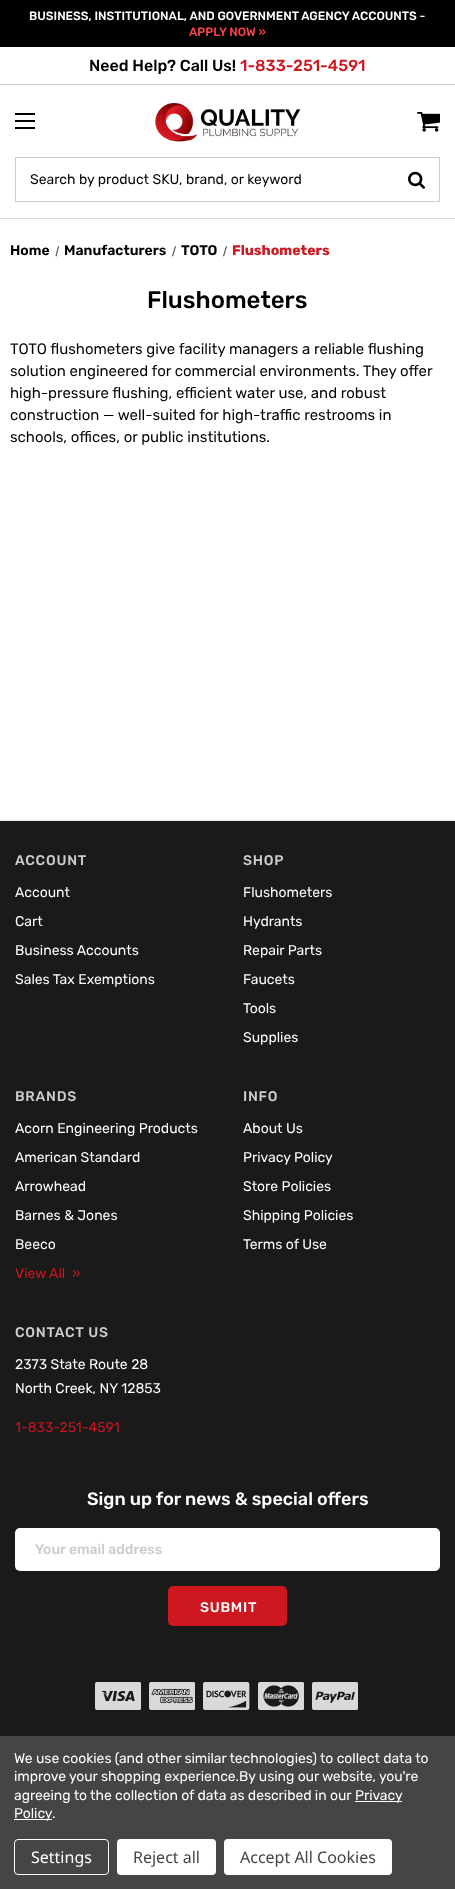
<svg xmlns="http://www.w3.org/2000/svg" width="455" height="1889">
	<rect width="100%" height="100%" fill="#FFFFFF" />
	<rect x="0" y="0" width="455" height="47" fill="#000000" />
	<text x="29" y="20" font-family="Rubik" font-size="12" font-weight="500" fill="#FFFFFF">BUSINESS, INSTITUTIONAL, AND GOVERNMENT AGENCY ACCOUNTS -</text>
	<text x="189" y="36" font-family="Rubik" font-size="12" font-weight="500" fill="#FD434B">APPLY NOW »</text>
	<rect x="0" y="84" width="455" height="1" fill="#CCCCCC" />
	<text x="89" y="71" font-family="Rubik" font-size="16" font-weight="500" fill="#000000">Need Help? Call Us!</text>
	<text x="240" y="71" font-family="Rubik" font-size="16" font-weight="500" fill="#CE171F">1-833-251-4591</text>
	<rect x="15" y="120" width="20" height="2" fill="#000000" />
	<rect x="15" y="113" width="20" height="2" fill="#000000" />
	<rect x="15" y="127" width="20" height="2" fill="#000000" />
	<rect x="0" y="218" width="455" height="1" fill="#D9D9D9" />
	<image x="155" y="103" width="146" height="39" href="assets/img1.png" />
	<image x="417" y="112" width="23" height="20" href="assets/img2.png" />
	<rect x="15.5" y="157.5" width="424" height="44" fill="none" stroke="#CCCCCC" />
	<text x="30" y="184" font-family="Rubik" font-size="14" fill="#000000">Search by product SKU, brand, or keyword</text>
	<image x="408" y="171" width="17" height="18" href="assets/img3.png" />
	<text x="10" y="255" font-family="Rubik" font-size="14" font-weight="600" fill="#000000">Home</text>
	<path d="M58 246L59 246.5L56.5 256.5L55.5 256Z" fill="#4F4F4F" />
	<g font-family="Rubik" font-size="14" font-weight="600" fill="#000000">
		<text x="64" y="255">Manufacturers</text>
		<text x="181" y="255">TOTO</text>
	</g>
	<path d="M175 246L176 246.5L173 256.5L172 256ZM226 246L227 246.5L224 256.5L223 256Z" fill="#4F4F4F" />
	<text x="232" y="255" font-family="Rubik" font-size="14" font-weight="700" fill="#CE171F">Flushometers</text>
	<text x="147" y="308" font-family="Rubik" font-size="24" font-weight="500" fill="#000000">Flushometers</text>
	<g font-family="Rubik" font-size="15" fill="#000000">
		<text x="10" y="354">TOTO flushometers give facility managers a reliable flushing</text>
		<text x="10" y="376">solution engineered for commercial environments. They offer</text>
		<text x="10" y="398">high-pressure flushing, efficient water use, and robust</text>
		<text x="10" y="420">construction — well-suited for high-traffic restrooms in</text>
		<text x="10" y="442">schools, offices, or public institutions.</text>
	</g>
	<rect x="0" y="821" width="455" height="915" fill="#1A1A1A" />
	<rect x="0" y="820" width="455" height="1" fill="#E8E8E8" />
	<text x="15" y="865" font-family="Rubik" font-size="14" font-weight="500" letter-spacing="0.75" fill="#CCCCCC">ACCOUNT</text>
	<g font-family="Rubik" font-size="14" fill="#FFFFFF">
		<text x="15" y="897">Account</text>
		<text x="15" y="926">Cart</text>
		<text x="15" y="955">Business Accounts</text>
		<text x="15" y="984">Sales Tax Exemptions</text>
	</g>
	<text x="243" y="865" font-family="Rubik" font-size="14" font-weight="500" letter-spacing="0.75" fill="#CCCCCC">SHOP</text>
	<g font-family="Rubik" font-size="14" fill="#FFFFFF">
		<text x="243" y="897">Flushometers</text>
		<text x="243" y="926">Hydrants</text>
		<text x="243" y="955">Repair Parts</text>
		<text x="243" y="984">Faucets</text>
		<text x="243" y="1013">Tools</text>
		<text x="243" y="1042">Supplies</text>
	</g>
	<text x="15" y="1101" font-family="Rubik" font-size="14" font-weight="500" letter-spacing="0.75" fill="#CCCCCC">BRANDS</text>
	<g font-family="Rubik" font-size="14" fill="#FFFFFF">
		<text x="15" y="1133">Acorn Engineering Products</text>
		<text x="15" y="1162">American Standard</text>
		<text x="15" y="1191">Arrowhead</text>
		<text x="15" y="1220">Barnes &amp; Jones</text>
		<text x="15" y="1249">Beeco</text>
	</g>
	<g font-family="Rubik" font-size="14" fill="#CE171F">
		<text x="15" y="1278">View All</text>
		<text x="72" y="1278">»</text>
	</g>
	<text x="243" y="1101" font-family="Rubik" font-size="14" font-weight="500" letter-spacing="0.75" fill="#CCCCCC">INFO</text>
	<g font-family="Rubik" font-size="14" fill="#FFFFFF">
		<text x="243" y="1133">About Us</text>
		<text x="243" y="1162">Privacy Policy</text>
		<text x="243" y="1191">Store Policies</text>
		<text x="243" y="1220">Shipping Policies</text>
		<text x="243" y="1249">Terms of Use</text>
	</g>
	<text x="15" y="1337" font-family="Rubik" font-size="14" font-weight="500" letter-spacing="0.75" fill="#CCCCCC">CONTACT US</text>
	<g font-family="Rubik" font-size="14" fill="#FFFFFF">
		<text x="15" y="1369">2373 State Route 28</text>
		<text x="15" y="1393">North Creek, NY 12853</text>
	</g>
	<text x="15" y="1432" font-family="Rubik" font-size="14" fill="#CE171F">1-833-251-4591</text>
	<text x="87" y="1505" font-family="Rubik" font-size="18" font-weight="500" fill="#FFFFFF">Sign up for news &amp; special offers</text>
	<rect x="15" y="1528" width="425" height="43" rx="5" fill="#FFFFFF" />
	<text x="35" y="1554" font-family="Rubik" font-size="14" font-weight="500" fill="#CCCCCC">Your email address</text>
	<rect x="168" y="1586" width="119" height="40" rx="5" fill="#CE171F" />
	<text x="200" y="1612" font-family="Rubik" font-size="14" font-weight="500" letter-spacing="0.75" fill="#FFFFFF">SUBMIT</text>
	<image x="95" y="1682" width="46" height="28" href="assets/img4.png" />
	<image x="149" y="1682" width="46" height="28" href="assets/img5.png" />
	<image x="203" y="1682" width="47" height="28" href="assets/img6.png" />
	<image x="258" y="1682" width="46" height="28" href="assets/img7.png" />
	<image x="312" y="1682" width="46" height="28" href="assets/img8.png" />
	<rect x="0" y="1736" width="455" height="153" fill="#454545" />
	<g font-family="Rubik" font-size="14" letter-spacing="-0.05" fill="#FFFFFF">
		<text x="14" y="1763">We use cookies (and other similar technologies) to collect data to</text>
		<text x="14" y="1781">improve your shopping experience.By using our website, you're</text>
		<text x="14" y="1800">agreeing to the collection of data as described in our</text>
	</g>
	<rect x="355" y="1801" width="47" height="1" fill="#FFFFFF" />
	<text x="355" y="1800" font-family="Rubik" font-size="14" letter-spacing="-0.05" fill="#FFFFFF">Privacy</text>
	<rect x="14" y="1819" width="38" height="1" fill="#FFFFFF" />
	<g font-family="Rubik" font-size="14" letter-spacing="-0.05" fill="#FFFFFF">
		<text x="14" y="1818">Policy</text>
		<text x="52" y="1818">.</text>
	</g>
	<rect x="14.5" y="1839.5" width="94" height="35" rx="3.5" fill="none" stroke="#FFFFFF" />
	<text x="31" y="1863" font-family="Noto Sans" font-size="16" fill="#FFFFFF">Settings</text>
	<rect x="117" y="1839" width="99" height="36" rx="4" fill="#FFFFFF" />
	<text x="133" y="1863" font-family="Noto Sans" font-size="16" fill="#454545">Reject all</text>
	<rect x="224" y="1839" width="168" height="36" rx="4" fill="#FFFFFF" />
	<text x="240" y="1863" font-family="Noto Sans" font-size="16" fill="#454545">Accept All Cookies</text>
</svg>
